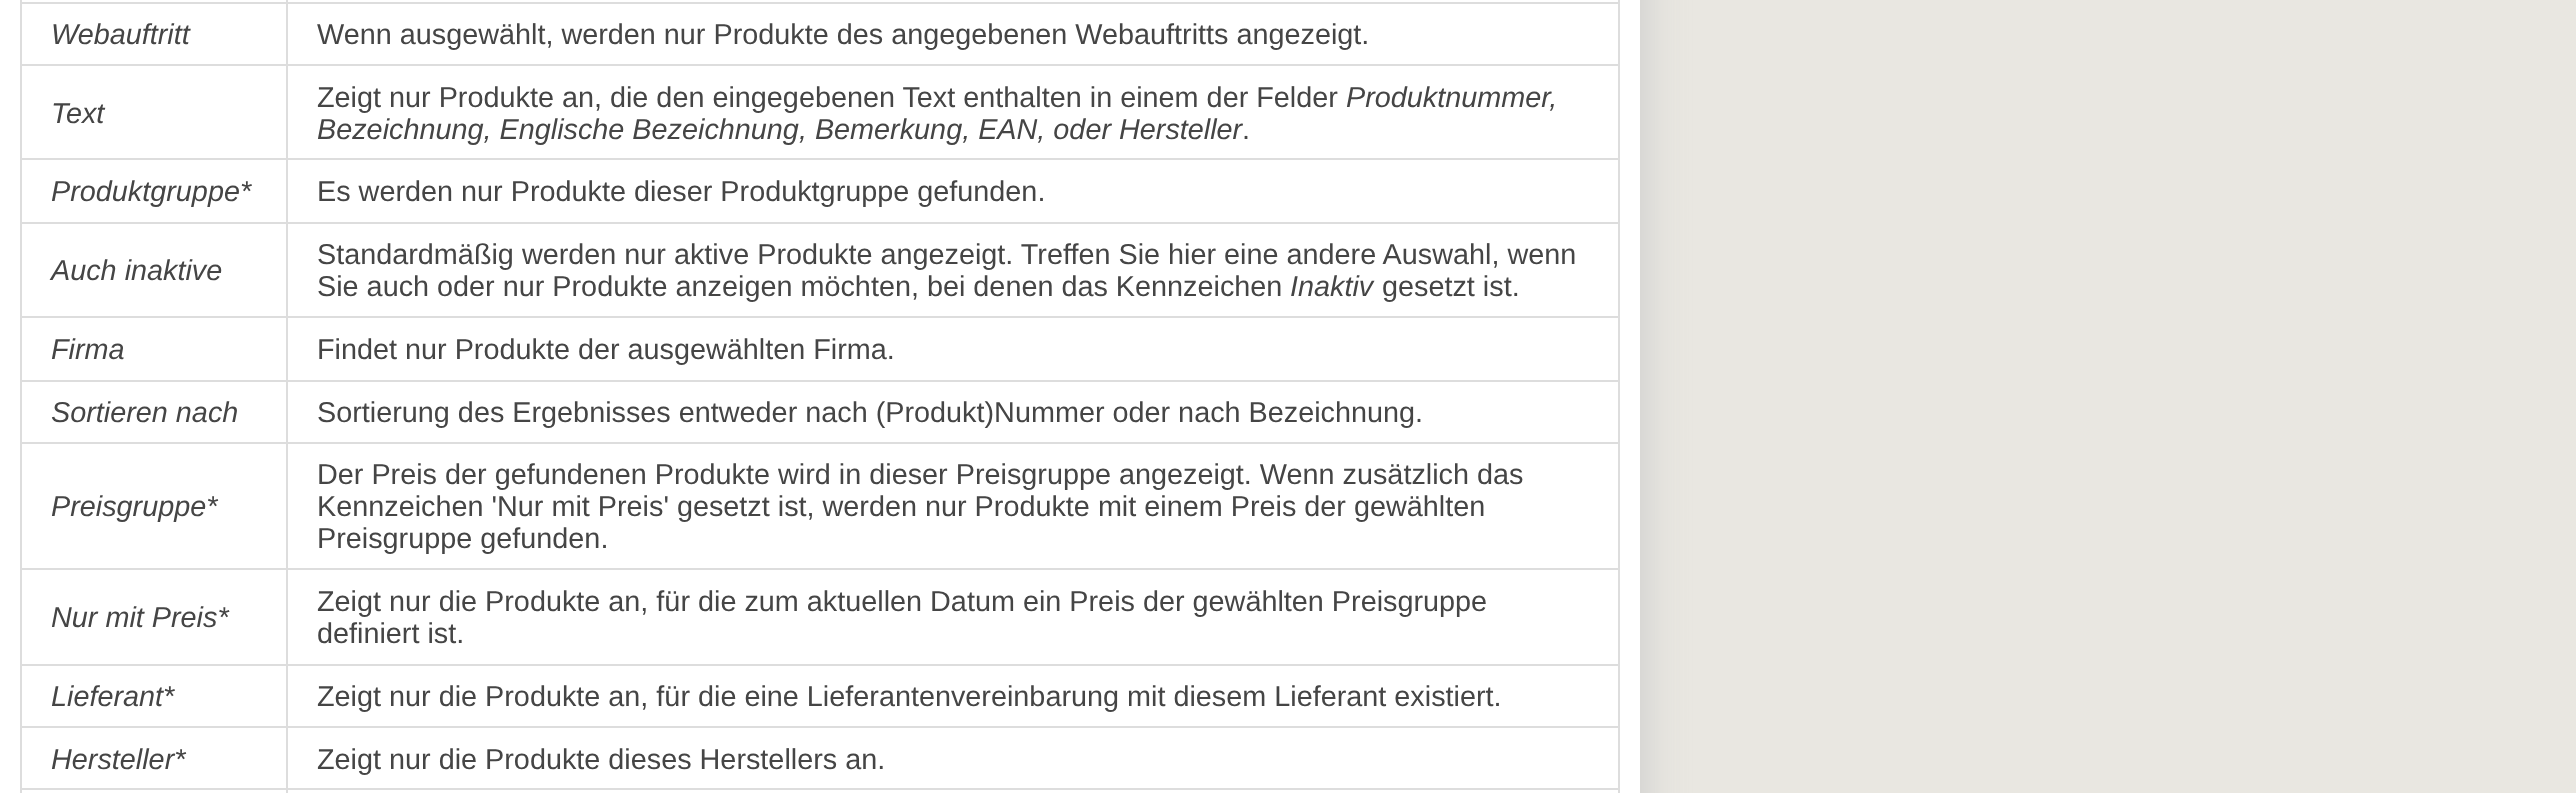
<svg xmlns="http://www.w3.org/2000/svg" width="2576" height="793">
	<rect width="100%" height="100%" fill="#E9E7E1" />
	<rect x="4" y="-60" width="1640" height="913" fill="#CCCCCC" filter="blur(20px)" />
	<rect x="0" y="0" width="1640" height="793" fill="#FFFFFF" />
	<rect x="1618" y="0" width="2" height="793" fill="#DDDDDD" />
	<rect x="20" y="0" width="2" height="793" fill="#DDDDDD" />
	<rect x="286" y="2" width="1334" height="2" fill="#DDDDDD" />
	<rect x="286" y="64" width="1334" height="2" fill="#DDDDDD" />
	<rect x="286" y="158" width="1334" height="2" fill="#DDDDDD" />
	<rect x="286" y="222" width="1334" height="2" fill="#DDDDDD" />
	<rect x="286" y="316" width="1334" height="2" fill="#DDDDDD" />
	<rect x="286" y="380" width="1334" height="2" fill="#DDDDDD" />
	<rect x="286" y="442" width="1334" height="2" fill="#DDDDDD" />
	<rect x="286" y="568" width="1334" height="2" fill="#DDDDDD" />
	<rect x="286" y="664" width="1334" height="2" fill="#DDDDDD" />
	<rect x="286" y="726" width="1334" height="2" fill="#DDDDDD" />
	<rect x="286" y="788" width="1334" height="2" fill="#DDDDDD" />
	<rect x="286" y="788" width="2" height="5" fill="#DDDDDD" />
	<rect x="20" y="788" width="268" height="2" fill="#DDDDDD" />
	<rect x="286" y="726" width="2" height="64" fill="#DDDDDD" />
	<rect x="20" y="726" width="268" height="2" fill="#DDDDDD" />
	<rect x="286" y="664" width="2" height="64" fill="#DDDDDD" />
	<rect x="20" y="664" width="268" height="2" fill="#DDDDDD" />
	<rect x="286" y="568" width="2" height="98" fill="#DDDDDD" />
	<rect x="20" y="568" width="268" height="2" fill="#DDDDDD" />
	<rect x="286" y="442" width="2" height="128" fill="#DDDDDD" />
	<rect x="20" y="442" width="268" height="2" fill="#DDDDDD" />
	<rect x="286" y="380" width="2" height="64" fill="#DDDDDD" />
	<rect x="20" y="380" width="268" height="2" fill="#DDDDDD" />
	<rect x="286" y="316" width="2" height="66" fill="#DDDDDD" />
	<rect x="20" y="316" width="268" height="2" fill="#DDDDDD" />
	<rect x="286" y="222" width="2" height="96" fill="#DDDDDD" />
	<rect x="20" y="222" width="268" height="2" fill="#DDDDDD" />
	<rect x="286" y="158" width="2" height="66" fill="#DDDDDD" />
	<rect x="20" y="158" width="268" height="2" fill="#DDDDDD" />
	<rect x="286" y="64" width="2" height="96" fill="#DDDDDD" />
	<rect x="20" y="64" width="268" height="2" fill="#DDDDDD" />
	<rect x="286" y="2" width="2" height="64" fill="#DDDDDD" />
	<rect x="20" y="2" width="268" height="2" fill="#DDDDDD" />
	<rect x="286" y="0" width="2" height="4" fill="#DDDDDD" />
	<text x="51" y="44" font-family="Liberation Sans" font-size="28.8" font-style="italic" fill="#454545">Webauftritt</text>
	<text x="317" y="44" font-family="Liberation Sans" font-size="28.8" fill="#454545">Wenn ausgewählt, werden nur Produkte des angegebenen Webauftritts angezeigt.</text>
	<text x="51" y="123" font-family="Liberation Sans" font-size="28.8" font-style="italic" fill="#454545">Text</text>
	<text x="317" y="107" font-family="Liberation Sans" font-size="28.8" fill="#454545">Zeigt nur Produkte an, die den eingegebenen Text enthalten in einem der Felder</text>
	<g font-family="Liberation Sans" font-size="28.8" font-style="italic" fill="#454545">
		<text x="1346" y="107">Produktnummer,</text>
		<text x="317" y="139">Bezeichnung, Englische Bezeichnung, Bemerkung, EAN, oder Hersteller</text>
	</g>
	<text x="1242" y="139" font-family="Liberation Sans" font-size="28.8" fill="#454545">.</text>
	<text x="51" y="201" font-family="Liberation Sans" font-size="28.8" font-style="italic" fill="#454545">Produktgruppe*</text>
	<text x="317" y="201" font-family="Liberation Sans" font-size="28.8" fill="#454545">Es werden nur Produkte dieser Produktgruppe gefunden.</text>
	<text x="51" y="280" font-family="Liberation Sans" font-size="28.8" font-style="italic" fill="#454545">Auch inaktive</text>
	<g font-family="Liberation Sans" font-size="28.8" fill="#454545">
		<text x="317" y="264">Standardmäßig werden nur aktive Produkte angezeigt. Treffen Sie hier eine andere Auswahl, wenn</text>
		<text x="317" y="296">Sie auch oder nur Produkte anzeigen möchten, bei denen das Kennzeichen</text>
	</g>
	<text x="1290" y="296" font-family="Liberation Sans" font-size="28.8" font-style="italic" fill="#454545">Inaktiv</text>
	<text x="1382" y="296" font-family="Liberation Sans" font-size="28.8" fill="#454545">gesetzt ist.</text>
	<text x="51" y="359" font-family="Liberation Sans" font-size="28.8" font-style="italic" fill="#454545">Firma</text>
	<text x="317" y="359" font-family="Liberation Sans" font-size="28.8" fill="#454545">Findet nur Produkte der ausgewählten Firma.</text>
	<text x="51" y="422" font-family="Liberation Sans" font-size="28.8" font-style="italic" fill="#454545">Sortieren nach</text>
	<text x="317" y="422" font-family="Liberation Sans" font-size="28.8" fill="#454545">Sortierung des Ergebnisses entweder nach (Produkt)Nummer oder nach Bezeichnung.</text>
	<text x="51" y="516" font-family="Liberation Sans" font-size="28.8" font-style="italic" fill="#454545">Preisgruppe*</text>
	<g font-family="Liberation Sans" font-size="28.8" fill="#454545">
		<text x="317" y="484">Der Preis der gefundenen Produkte wird in dieser Preisgruppe angezeigt. Wenn zusätzlich das</text>
		<text x="317" y="516">Kennzeichen 'Nur mit Preis' gesetzt ist, werden nur Produkte mit einem Preis der gewählten</text>
		<text x="317" y="548">Preisgruppe gefunden.</text>
	</g>
	<text x="51" y="627" font-family="Liberation Sans" font-size="28.8" font-style="italic" fill="#454545">Nur mit Preis*</text>
	<g font-family="Liberation Sans" font-size="28.8" fill="#454545">
		<text x="317" y="611">Zeigt nur die Produkte an, für die zum aktuellen Datum ein Preis der gewählten Preisgruppe</text>
		<text x="317" y="643">definiert ist.</text>
	</g>
	<text x="51" y="706" font-family="Liberation Sans" font-size="28.8" font-style="italic" fill="#454545">Lieferant*</text>
	<text x="317" y="706" font-family="Liberation Sans" font-size="28.8" fill="#454545">Zeigt nur die Produkte an, für die eine Lieferantenvereinbarung mit diesem Lieferant existiert.</text>
	<text x="51" y="769" font-family="Liberation Sans" font-size="28.8" font-style="italic" fill="#454545">Hersteller*</text>
	<text x="317" y="769" font-family="Liberation Sans" font-size="28.8" fill="#454545">Zeigt nur die Produkte dieses Herstellers an.</text>
</svg>
